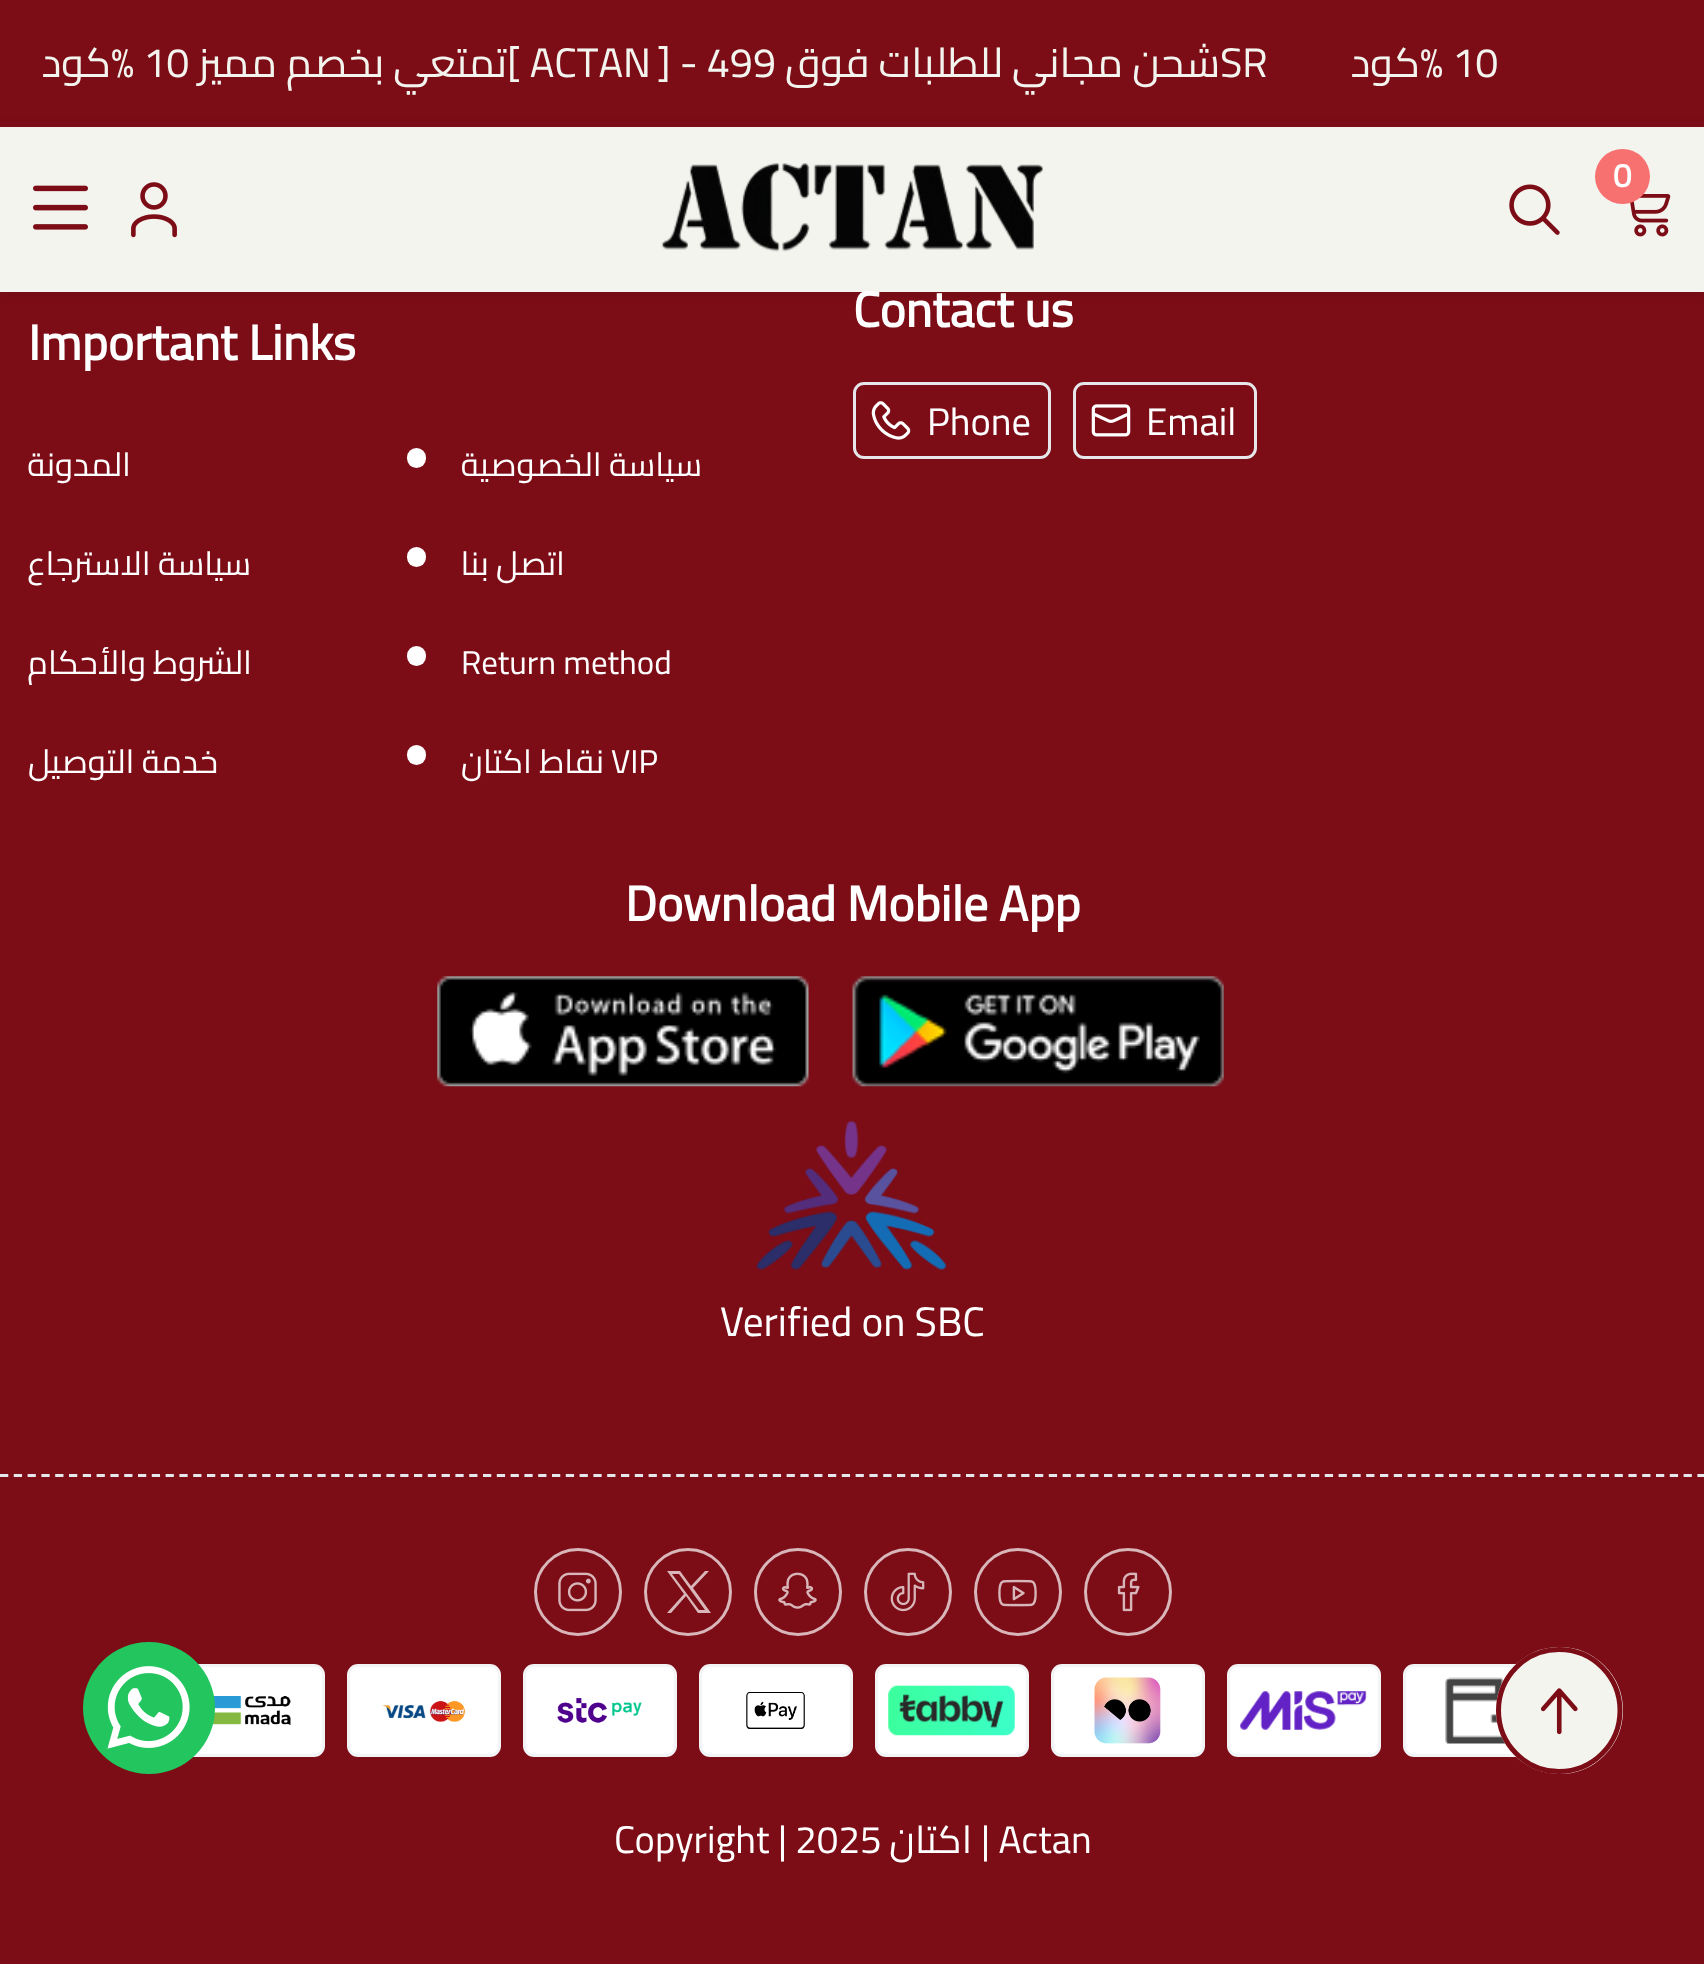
<svg xmlns="http://www.w3.org/2000/svg" width="1704" height="1964">
	<rect width="100%" height="100%" fill="#7C0D17" />
	<rect x="0" y="127" width="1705" height="165" fill="#000000" fill-opacity="0.1" filter="blur(7px)" />
	<rect x="0" y="121" width="1704" height="6" fill="#7C0D17" />
	<text x="111" y="77" font-family="Cairo" font-size="41.25" direction="rtl" fill="#F4F4EF">كود</text>
	<text x="111" y="77" font-family="Cairo" font-size="41.25" fill="#F4F4EF">% 10</text>
	<text x="507" y="77" font-family="Cairo" font-size="41.25" direction="rtl" fill="#F4F4EF">تمتعي بخصم مميز</text>
	<g font-family="Cairo" font-size="41.25" fill="#F4F4EF">
		<text x="507" y="77">[ ACTAN</text>
		<text x="657" y="77">] - 499</text>
	</g>
	<text x="1220" y="77" font-family="Cairo" font-size="41.25" direction="rtl" fill="#F4F4EF">شحن مجاني للطلبات فوق</text>
	<text x="1220" y="77" font-family="Cairo" font-size="41.25" fill="#F4F4EF">SR</text>
	<text x="1420" y="77" font-family="Cairo" font-size="41.25" direction="rtl" fill="#F4F4EF">كود</text>
	<text x="1420" y="77" font-family="Cairo" font-size="41.25" fill="#F4F4EF">% 10</text>
	<rect x="0" y="127" width="1704" height="165" fill="#F4F4EF" />
	<image x="661" y="163" width="382" height="89" href="assets/img1.png" />
	<image x="1630" y="194" width="41" height="43" href="assets/img2.png" />
	<circle cx="1622.5" cy="176.5" r="27.5" fill="#F87171" />
	<text x="1613" y="187" font-family="Cairo" font-size="33" font-weight="700" fill="#FFFFFF">0</text>
	<image x="1509" y="184" width="51" height="51" href="assets/img3.png" />
	<image x="33" y="185" width="55" height="45" href="assets/img4.png" />
	<image x="131" y="182" width="46" height="56" href="assets/img5.png" />
	<path d="M0 1475.5H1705" fill="none" stroke="#E5E7EB" stroke-width="2.8" stroke-dasharray="8.25 5.55" />
	<text x="28" y="360" font-family="Cairo" font-size="49.5" font-weight="700" fill="#FFFFFF">Important Links</text>
	<text x="131" y="476" font-family="Cairo" font-size="33" direction="rtl" fill="#FFFFFF">المدونة</text>
	<rect x="407" y="448" width="19" height="20" rx="9.5" fill="#FFFFFF" />
	<g font-family="Cairo" font-size="33" direction="rtl" fill="#FFFFFF">
		<text x="702" y="476">سياسة الخصوصية</text>
		<text x="251" y="575">سياسة الاسترجاع</text>
	</g>
	<rect x="407" y="547" width="19" height="20" rx="9.5" fill="#FFFFFF" />
	<g font-family="Cairo" font-size="33" direction="rtl" fill="#FFFFFF">
		<text x="565" y="575">اتصل بنا</text>
		<text x="252" y="674">الشروط والأحكام</text>
	</g>
	<rect x="407" y="646" width="19" height="20" rx="9.5" fill="#FFFFFF" />
	<text x="461" y="674" font-family="Cairo" font-size="33" fill="#FFFFFF">Return method</text>
	<text x="218" y="773" font-family="Cairo" font-size="33" direction="rtl" fill="#FFFFFF">خدمة التوصيل</text>
	<rect x="407" y="745" width="19" height="20" rx="9.5" fill="#FFFFFF" />
	<text x="604" y="773" font-family="Cairo" font-size="33" direction="rtl" fill="#FFFFFF">نقاط اكتان</text>
	<text x="611" y="773" font-family="Cairo" font-size="33" fill="#FFFFFF">VIP</text>
	<text x="853" y="327" font-family="Cairo" font-size="49.5" font-weight="700" fill="#FFFFFF">Contact us</text>
	<rect x="854.5" y="383.5" width="195" height="74" rx="9.5" fill="none" stroke="#E5E7EB" stroke-width="3" />
	<image x="871" y="401" width="40" height="39" href="assets/img6.png" />
	<text x="927" y="435" font-family="Cairo" font-size="38.5" fill="#FFFFFF">Phone</text>
	<rect x="1074.5" y="383.5" width="181" height="74" rx="9.5" fill="none" stroke="#E5E7EB" stroke-width="3" />
	<image x="1091" y="404" width="40" height="33" href="assets/img7.png" />
	<text x="1146" y="435" font-family="Cairo" font-size="38.5" fill="#FFFFFF">Email</text>
	<text x="625" y="921" font-family="Cairo" font-size="49.5" font-weight="700" fill="#FFFFFF">Download Mobile App</text>
	<image x="437" y="976" width="372" height="111" href="assets/img8.png" />
	<image x="852" y="976" width="372" height="111" href="assets/img9.png" />
	<image x="756" y="1121" width="191" height="149" href="assets/img10.png" />
	<text x="720" y="1336" font-family="Cairo" font-size="41.25" fill="#FFFFFF">Verified on SBC</text>
	<circle cx="578" cy="1592" r="42.5" fill="none" stroke="#D8B6B9" stroke-width="3" />
	<image x="558" y="1572" width="39" height="40" href="assets/img11.png" />
	<circle cx="688" cy="1592" r="42.5" fill="none" stroke="#D8B6B9" stroke-width="3" />
	<path d="M667 1571L684 1594L667 1613H671L686 1596L698 1613H711L693 1588L709 1571H705L691 1586L680 1571ZM672 1574H679L705 1610H699Z" fill="#D8B6B9" />
	<circle cx="798" cy="1592" r="42.5" fill="none" stroke="#D8B6B9" stroke-width="3" />
	<image x="778" y="1572" width="39" height="37" href="assets/img12.png" />
	<circle cx="908" cy="1592" r="42.5" fill="none" stroke="#D8B6B9" stroke-width="3" />
	<image x="890" y="1572" width="35" height="40" href="assets/img13.png" />
	<circle cx="1018" cy="1592" r="42.5" fill="none" stroke="#D8B6B9" stroke-width="3" />
	<image x="998" y="1579" width="39" height="28" href="assets/img14.png" />
	<circle cx="1128" cy="1592" r="42.5" fill="none" stroke="#D8B6B9" stroke-width="3" />
	<image x="1117" y="1572" width="23" height="40" href="assets/img15.png" />
	<rect x="172.5" y="1665.5" width="151" height="90" rx="9.5" fill="#FFFFFF" stroke="#F3F4F6" stroke-width="3" />
	<image x="212" y="1696" width="79" height="29" href="assets/img16.png" />
	<rect x="348.5" y="1665.5" width="151" height="90" rx="9.5" fill="#FFFFFF" stroke="#F3F4F6" stroke-width="3" />
	<image x="382" y="1700" width="84" height="22" href="assets/img17.png" />
	<rect x="524.5" y="1665.5" width="151" height="90" rx="9.5" fill="#FFFFFF" stroke="#F3F4F6" stroke-width="3" />
	<image x="557" y="1698" width="85" height="25" href="assets/img18.png" />
	<rect x="700.5" y="1665.5" width="151" height="90" rx="9.5" fill="#FFFFFF" stroke="#F3F4F6" stroke-width="3" />
	<image x="746" y="1692" width="59" height="37" href="assets/img19.png" />
	<rect x="876.5" y="1665.5" width="151" height="90" rx="9.5" fill="#FFFFFF" stroke="#F3F4F6" stroke-width="3" />
	<image x="888" y="1685" width="127" height="51" href="assets/img20.png" />
	<rect x="1052.5" y="1665.5" width="151" height="90" rx="9.5" fill="#FFFFFF" stroke="#F3F4F6" stroke-width="3" />
	<image x="1094" y="1677" width="67" height="67" href="assets/img21.png" />
	<rect x="1228.5" y="1665.5" width="151" height="90" rx="9.5" fill="#FFFFFF" stroke="#F3F4F6" stroke-width="3" />
	<image x="1240" y="1691" width="127" height="39" href="assets/img22.png" />
	<rect x="1404.5" y="1665.5" width="151" height="90" rx="9.5" fill="#FFFFFF" stroke="#F3F4F6" stroke-width="3" />
	<image x="1445" y="1677" width="61" height="67" href="assets/img23.png" />
	<text x="614" y="1853" font-family="Cairo" font-size="38.5" fill="#FFFFFF">Copyright | 2025</text>
	<text x="972" y="1853" font-family="Cairo" font-size="38.5" direction="rtl" fill="#FFFFFF">اكتان</text>
	<text x="981" y="1853" font-family="Cairo" font-size="38.5" fill="#FFFFFF">| Actan</text>
	<circle cx="149" cy="1708" r="66" fill="#22C55E" />
	<image x="107" y="1666" width="83" height="83" href="assets/img24.png" />
	<circle cx="1559.5" cy="1710.5" r="58" fill="#F4F4EF" stroke="#F4F4EF" stroke-width="11" />
	<image x="1541" y="1688" width="37" height="47" href="assets/img25.png" />
	<path d="M1559 1649.5C1593 1649.5 1620 1677 1620 1710.5C1620 1744 1593 1771.5 1559 1771.5C1525.5 1771.5 1498.5 1744 1498.5 1710.5C1498.5 1677 1525.5 1649.5 1559 1649.5" fill="none" stroke="#7C0D17" stroke-width="5" />
</svg>
